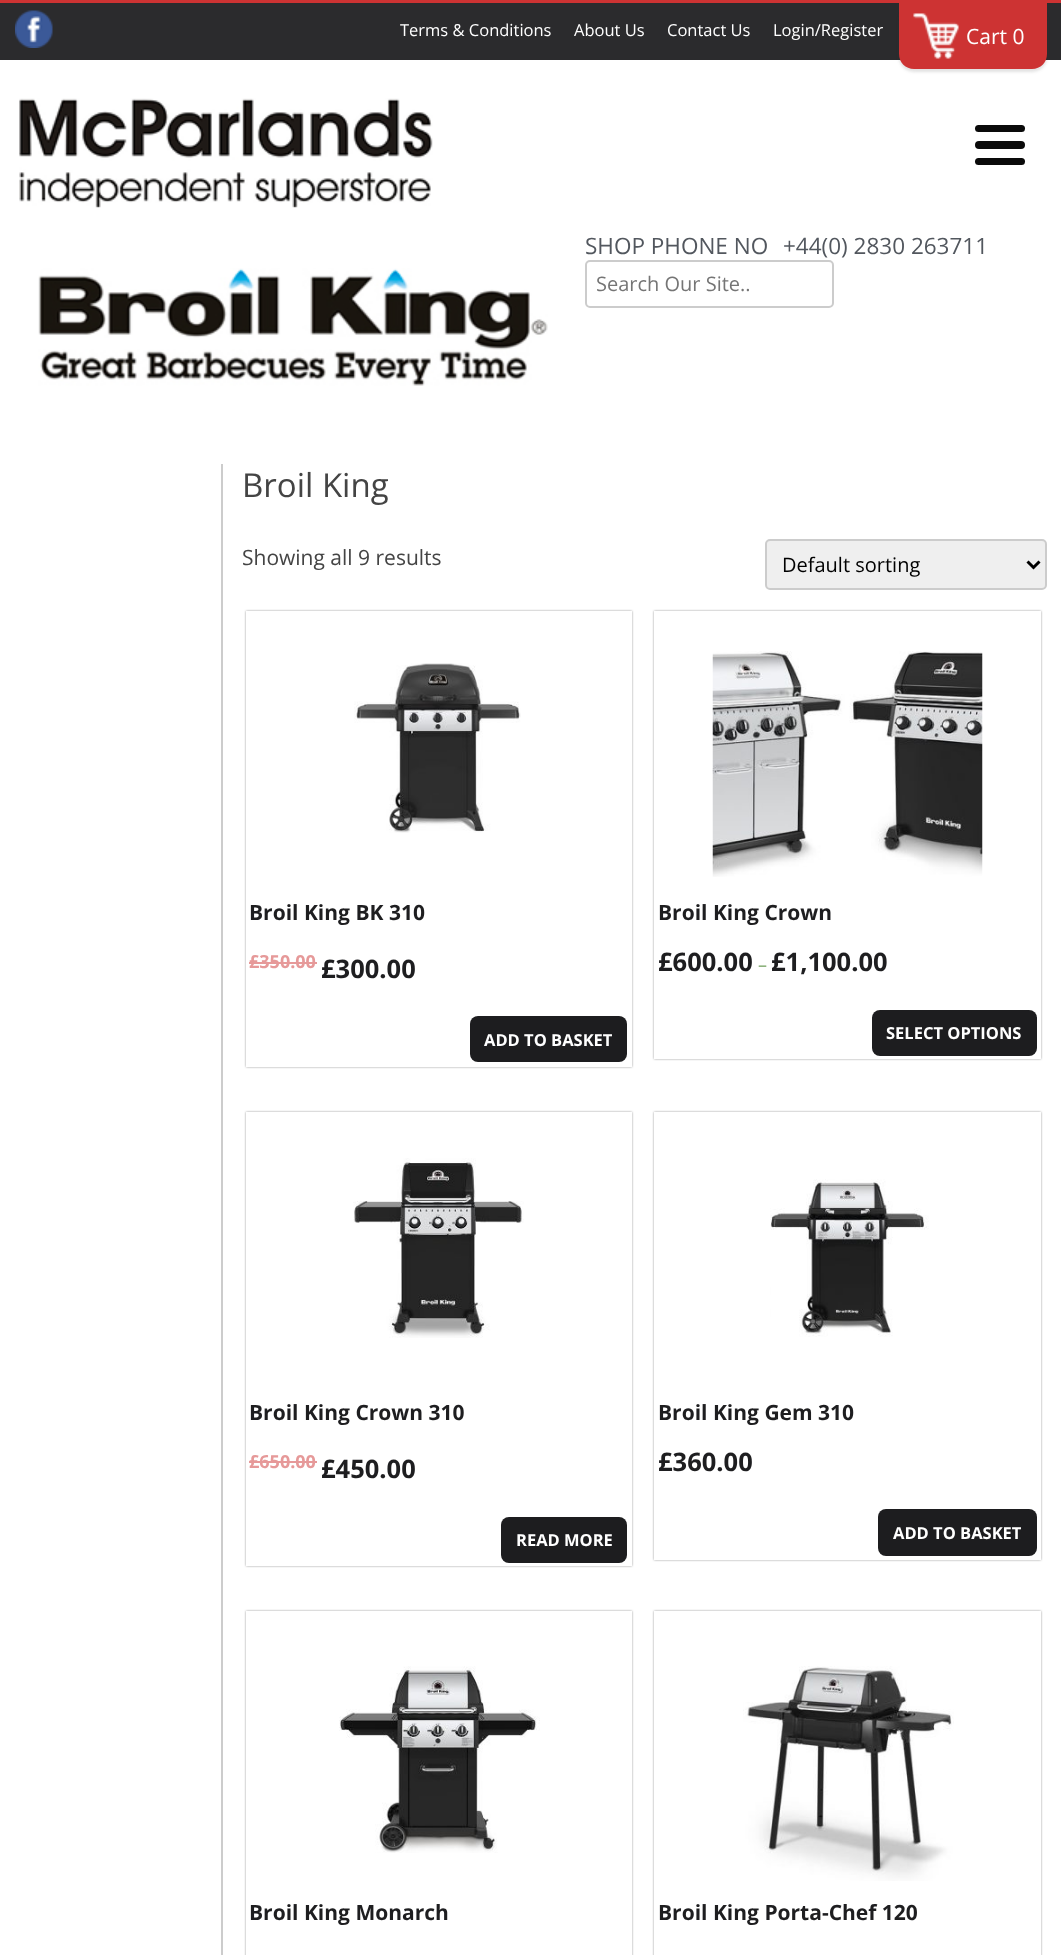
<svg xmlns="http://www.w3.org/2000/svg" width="1061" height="1955">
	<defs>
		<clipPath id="clip1"><path d="M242 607H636V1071H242ZM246 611H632V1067H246Z" clip-rule="evenodd" /></clipPath>
		<clipPath id="clip2"><path d="M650 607H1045V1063H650ZM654 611H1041V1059H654Z" clip-rule="evenodd" /></clipPath>
		<clipPath id="clip3"><path d="M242 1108H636V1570H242ZM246 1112H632V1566H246Z" clip-rule="evenodd" /></clipPath>
		<clipPath id="clip4"><path d="M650 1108H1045V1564H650ZM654 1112H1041V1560H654Z" clip-rule="evenodd" /></clipPath>
		<clipPath id="clip5"><path d="M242 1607H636V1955H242ZM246 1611H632V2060H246Z" clip-rule="evenodd" /></clipPath>
		<clipPath id="clip6"><path d="M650 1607H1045V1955H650ZM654 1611H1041V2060H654Z" clip-rule="evenodd" /></clipPath>
	</defs>
	<rect width="100%" height="100%" fill="#FFFFFF" />
	<rect x="0" y="3" width="1061" height="57" fill="#2B2B2D" />
	<rect x="0" y="0" width="1061" height="3" fill="#CD3333" />
	<image x="15" y="10" width="38" height="38" href="assets/img1.png" />
	<g font-family="Open Sans" font-size="16.5" fill="#FFFFFF">
		<text x="400" y="36">Terms &amp; Conditions</text>
		<text x="574" y="36">About Us</text>
		<text x="667" y="36">Contact Us</text>
		<text x="773" y="36">Login/Register</text>
	</g>
	<rect x="899" y="6" width="148" height="66" rx="15" fill="#323232" fill-opacity="0.14" filter="blur(1.5px)" />
	<path d="M899 3H1047V54C1047 62.5 1040.5 69 1032 69H914C905.5 69 899 62.5 899 54Z" fill="#CD3333" />
	<image x="913" y="13" width="46" height="46" href="assets/img2.png" />
	<text x="966" y="44" font-family="Open Sans" font-size="21" fill="#FFFFFF">Cart 0</text>
	<image x="19" y="98" width="414" height="110" href="assets/img3.png" />
	<g font-family="Open Sans" font-size="22.5" fill="#52575E">
		<text x="585" y="254">SHOP PHONE NO</text>
		<text x="783" y="254">+44(0) 2830 263711</text>
	</g>
	<image x="38" y="268" width="510" height="118" href="assets/img4.png" />
	<rect x="586" y="261" width="247" height="46" rx="4" fill="none" stroke="#CCCCCC" stroke-width="2" />
	<text x="596" y="291" font-family="Open Sans" font-size="20" fill="#757575">Search Our Site..</text>
	<rect x="221" y="464" width="2" height="1491" fill="#CCCCCC" />
	<text x="242" y="497" font-family="Open Sans" font-size="33" fill="#444444">Broil King</text>
	<text x="242" y="565" font-family="Open Sans" font-size="21" fill="#444444">Showing all 9 results</text>
	<rect x="766" y="540" width="280" height="49" rx="4" fill="#EFEFEF" stroke="#CCCCCC" stroke-width="2" />
	<path d="M1027.5 561.5L1033.5 567.5L1039.5 561.5" fill="none" stroke="#000000" stroke-width="3" />
	<text x="782" y="572" font-family="Open Sans" font-size="20" fill="#000000">Default sorting</text>
	<g clip-path="url(#clip1)">
		<rect x="246" y="611" width="386" height="456" fill="#323232" fill-opacity="0.5" filter="blur(1px)" />
	</g>
	<image x="354" y="663" width="167" height="170" href="assets/img5.png" />
	<text x="249" y="920" font-family="Open Sans" font-size="21" font-weight="700" fill="#1E1E20">Broil King BK 310</text>
	<text x="249" y="968" font-family="Open Sans" font-size="18" font-weight="700" fill="#E69999">£350.00</text>
	<rect x="249" y="962" width="68" height="2" fill="#E69999" />
	<text x="321" y="978" font-family="Open Sans" font-size="25.5" font-weight="700" fill="#1E1E20">£300.00</text>
	<rect x="470" y="1016" width="157" height="46" rx="8" fill="#1D1D1F" />
	<text x="484" y="1046" font-family="Open Sans" font-size="16.5" font-weight="700" fill="#FFFFFF">ADD TO BASKET</text>
	<g clip-path="url(#clip2)">
		<rect x="654" y="611" width="387" height="448" fill="#323232" fill-opacity="0.5" filter="blur(1px)" />
	</g>
	<image x="712" y="651" width="271" height="226" href="assets/img6.png" />
	<text x="658" y="920" font-family="Open Sans" font-size="21" font-weight="700" fill="#1E1E20">Broil King Crown</text>
	<text x="658" y="971" font-family="Open Sans" font-size="25.5" font-weight="700" fill="#1E1E20">£600.00</text>
	<text x="758" y="971" font-family="Open Sans" font-size="18" fill="#77A464">–</text>
	<text x="771" y="971" font-family="Open Sans" font-size="25.5" font-weight="700" fill="#1E1E20">£1,100.00</text>
	<rect x="872" y="1010" width="165" height="46" rx="8" fill="#1D1D1F" />
	<text x="886" y="1039" font-family="Open Sans" font-size="16.5" font-weight="700" fill="#FFFFFF">SELECT OPTIONS</text>
	<g clip-path="url(#clip3)">
		<rect x="246" y="1112" width="386" height="454" fill="#323232" fill-opacity="0.5" filter="blur(1px)" />
	</g>
	<image x="353" y="1158" width="171" height="180" href="assets/img7.png" />
	<text x="249" y="1420" font-family="Open Sans" font-size="21" font-weight="700" fill="#1E1E20">Broil King Crown 310</text>
	<text x="249" y="1468" font-family="Open Sans" font-size="18" font-weight="700" fill="#E69999">£650.00</text>
	<rect x="249" y="1461" width="68" height="2" fill="#E69999" />
	<text x="321" y="1478" font-family="Open Sans" font-size="25.5" font-weight="700" fill="#1E1E20">£450.00</text>
	<rect x="501" y="1517" width="126" height="46" rx="8" fill="#1D1D1F" />
	<text x="516" y="1546" font-family="Open Sans" font-size="16.5" font-weight="700" fill="#FFFFFF">READ MORE</text>
	<g clip-path="url(#clip4)">
		<rect x="654" y="1112" width="387" height="448" fill="#323232" fill-opacity="0.5" filter="blur(1px)" />
	</g>
	<image x="770" y="1179" width="159" height="158" href="assets/img8.png" />
	<text x="658" y="1420" font-family="Open Sans" font-size="21" font-weight="700" fill="#1E1E20">Broil King Gem 310</text>
	<text x="658" y="1471" font-family="Open Sans" font-size="25.5" font-weight="700" fill="#1E1E20">£360.00</text>
	<rect x="878" y="1509" width="159" height="47" rx="8" fill="#1D1D1F" />
	<text x="893" y="1539" font-family="Open Sans" font-size="16.5" font-weight="700" fill="#FFFFFF">ADD TO BASKET</text>
	<g clip-path="url(#clip5)">
		<rect x="246" y="1611" width="386" height="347" fill="#323232" fill-opacity="0.5" filter="blur(1px)" />
	</g>
	<image x="339" y="1666" width="201" height="187" href="assets/img9.png" />
	<text x="249" y="1920" font-family="Open Sans" font-size="21" font-weight="700" fill="#1E1E20">Broil King Monarch</text>
	<g clip-path="url(#clip6)">
		<rect x="654" y="1611" width="387" height="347" fill="#323232" fill-opacity="0.5" filter="blur(1px)" />
	</g>
	<image x="743" y="1666" width="211" height="215" href="assets/img10.png" />
	<text x="658" y="1920" font-family="Open Sans" font-size="21" font-weight="700" fill="#1E1E20">Broil King Porta-Chef 120</text>
	<rect x="975" y="141" width="50" height="8" rx="4" fill="#0A0A0A" />
	<rect x="975" y="125" width="50" height="7" rx="3.5" fill="#0A0A0A" />
	<rect x="975" y="158" width="50" height="7" rx="3.5" fill="#0A0A0A" />
</svg>
